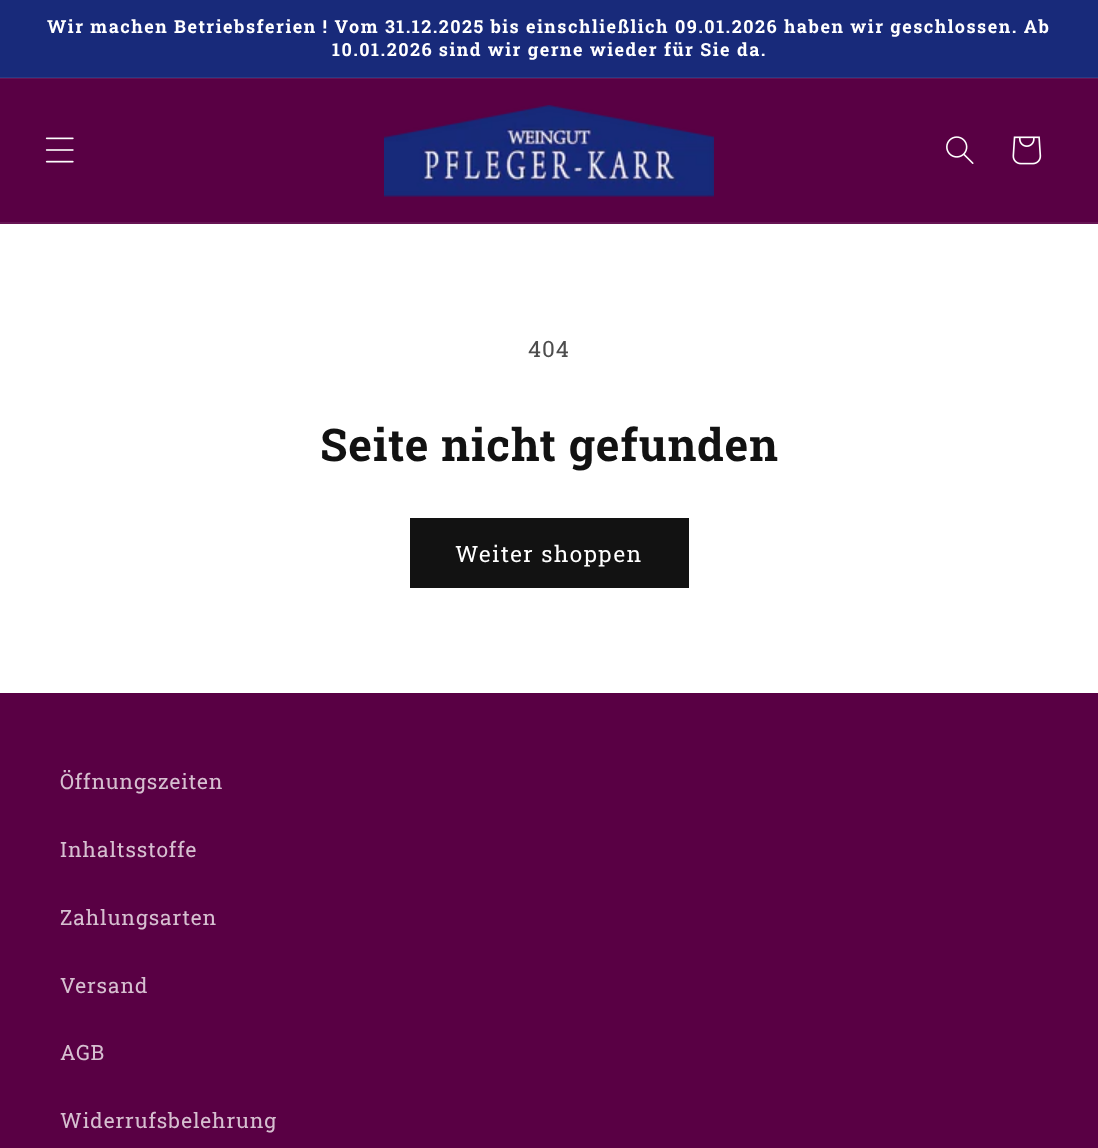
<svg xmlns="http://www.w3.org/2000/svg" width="1098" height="1148">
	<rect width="100%" height="100%" fill="#FFFFFF" />
	<rect x="0" y="0" width="1098" height="77" fill="#182A7A" />
	<rect x="0" y="77" width="1098" height="1" fill="#2A3B85" />
	<g font-family="Roboto Slab" font-size="18" font-weight="700" letter-spacing="1.5" fill="#FFFFFF">
		<text x="47" y="33">Wir machen Betriebsferien ! Vom 31.12.2025 bis einschließlich 09.01.2026 haben wir geschlossen. Ab</text>
		<text x="332" y="56">10.01.2026 sind wir gerne wieder für Sie da.</text>
	</g>
	<rect x="0" y="79" width="1098" height="143" fill="#590044" />
	<rect x="0" y="78" width="1098" height="1" fill="#661453" />
	<rect x="0" y="222" width="1098" height="2" fill="#661453" />
	<image x="45" y="137" width="29" height="26" href="assets/img1.png" />
	<image x="384" y="105" width="330" height="92" href="assets/img2.png" />
	<image x="946" y="136" width="28" height="28" href="assets/img3.png" />
	<image x="1012" y="136" width="30" height="29" href="assets/img4.png" />
	<text x="528" y="357" font-family="Roboto Slab" font-size="22.5" letter-spacing="0.9" fill="#4D4D4D">404</text>
	<text x="320" y="461" font-family="Roboto Slab" font-size="45" font-weight="700" letter-spacing="0.9" fill="#121212">Seite nicht gefunden</text>
	<rect x="410" y="518" width="279" height="70" fill="#121212" />
	<text x="455" y="562" font-family="Roboto Slab" font-size="22.5" letter-spacing="1.5" fill="#FFFFFF">Weiter shoppen</text>
	<rect x="0" y="693" width="1098" height="455" fill="#590044" />
	<g font-family="Roboto Slab" font-size="21" letter-spacing="0.9" fill="#D6BFD0">
		<text x="60" y="789">Öffnungszeiten</text>
		<text x="60" y="857">Inhaltsstoffe</text>
		<text x="60" y="925">Zahlungsarten</text>
		<text x="60" y="993">Versand</text>
		<text x="60" y="1060">AGB</text>
		<text x="60" y="1128">Widerrufsbelehrung</text>
	</g>
</svg>
